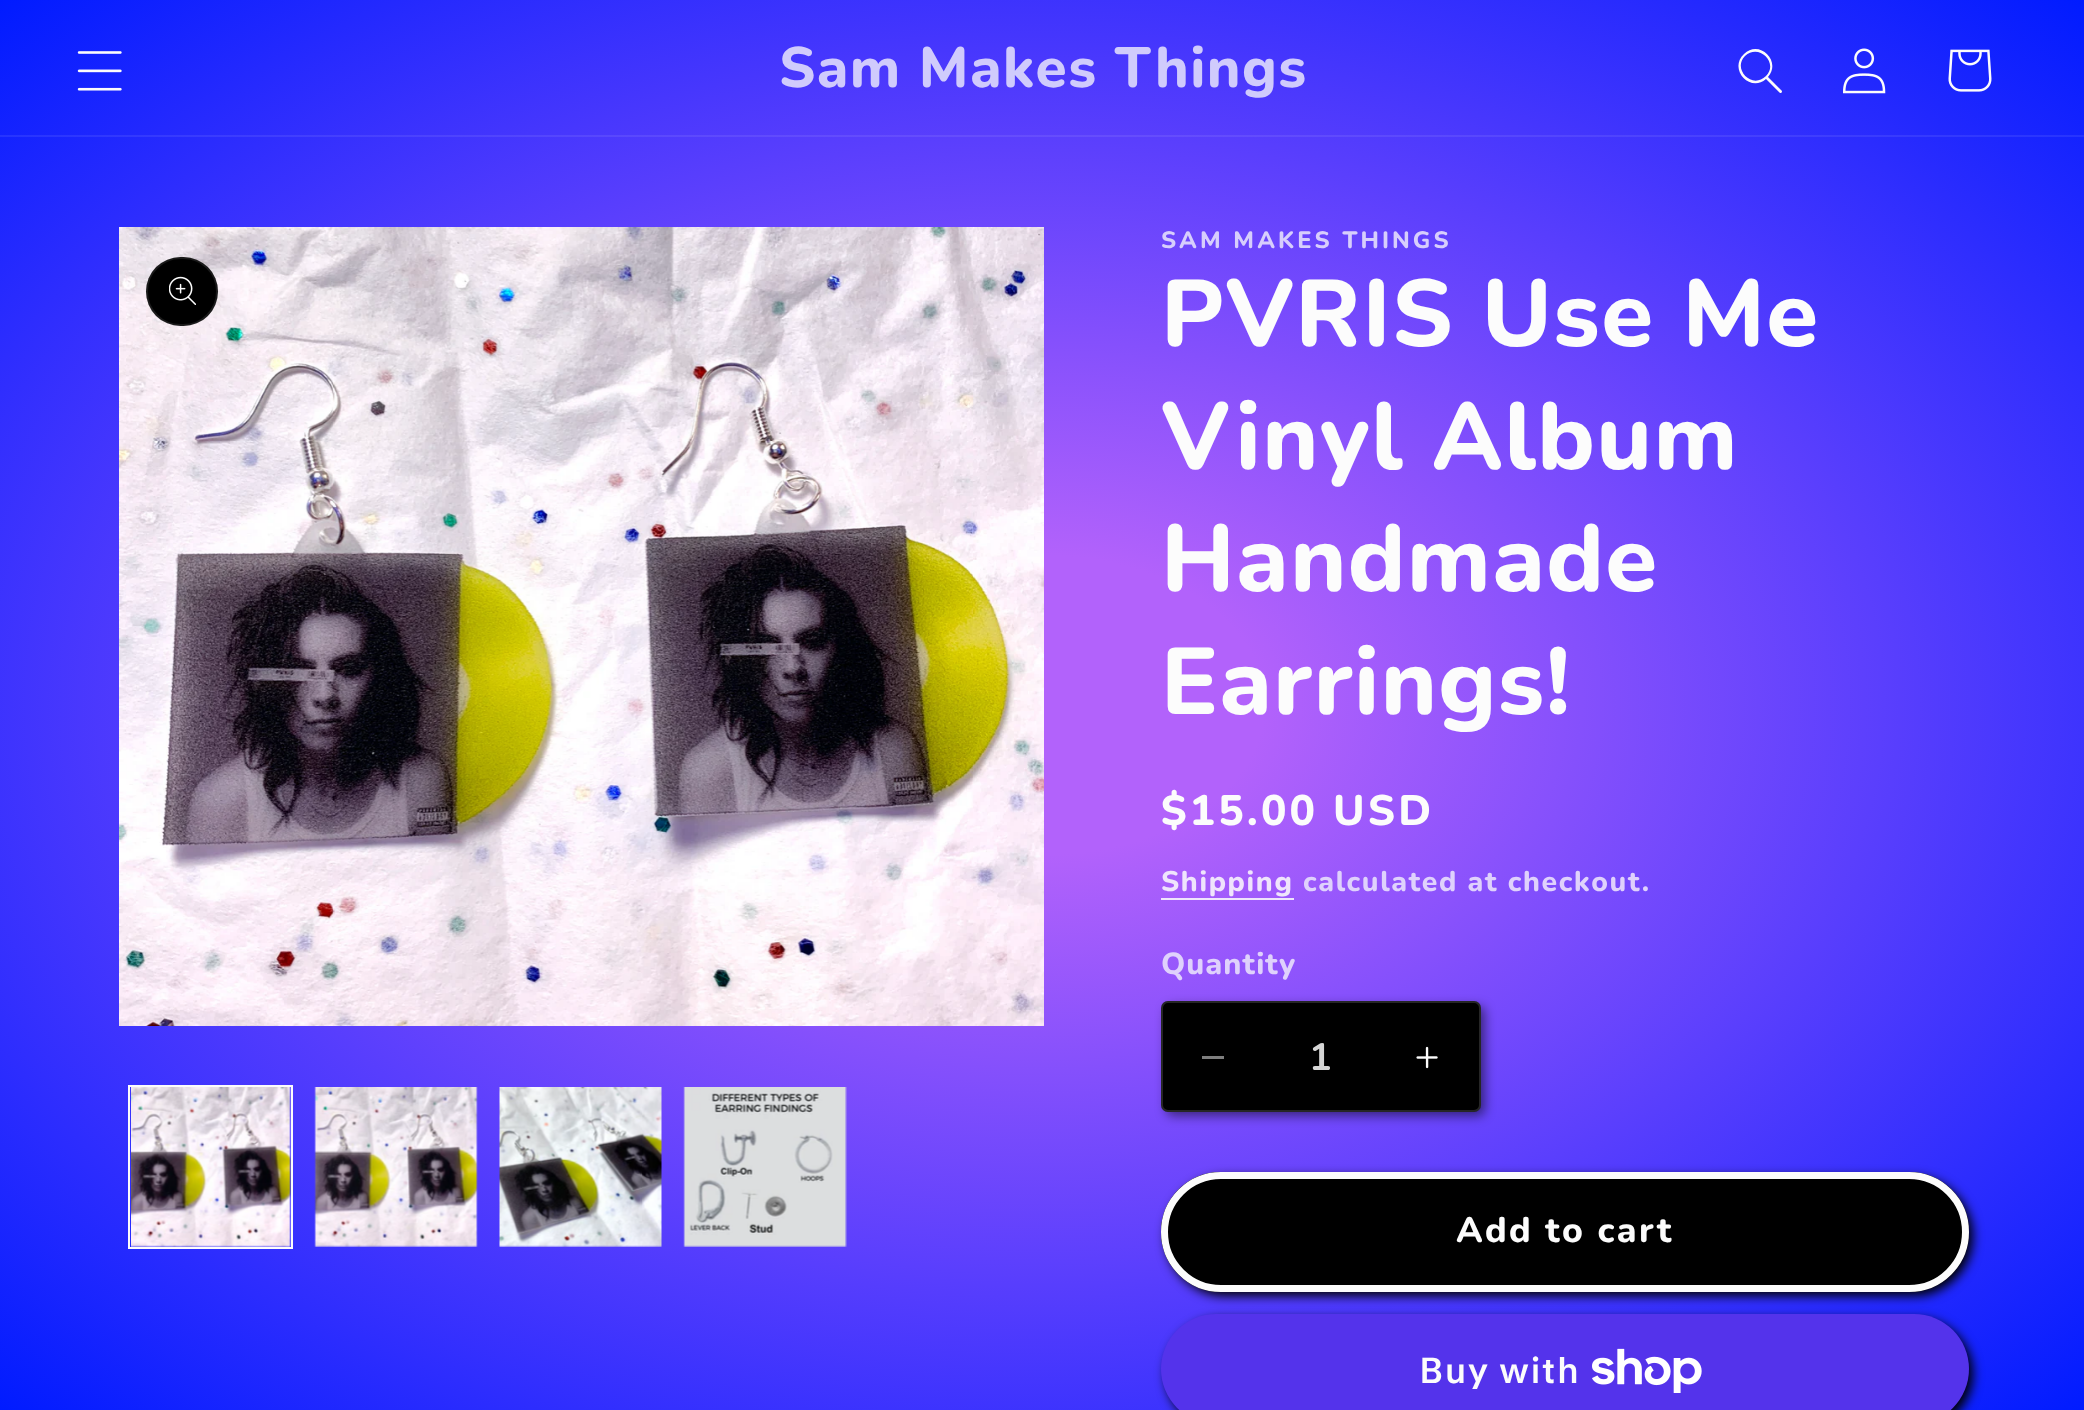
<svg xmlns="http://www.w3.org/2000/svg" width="2084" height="1410">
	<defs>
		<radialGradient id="g1" gradientUnits="userSpaceOnUse" cx="0" cy="0" r="1" gradientTransform="matrix(1475 0 0 998 1043 705)"><stop offset="0.15" stop-color="#B161FA" /><stop offset="1" stop-color="#001BFF" /></radialGradient>
		<radialGradient id="g2" gradientUnits="userSpaceOnUse" cx="0" cy="0" r="1" gradientTransform="matrix(1475 0 0 998 1043 705)"><stop offset="0.15" stop-color="#B76DFA" /><stop offset="1" stop-color="#142DFF" /></radialGradient>
		<radialGradient id="g3" gradientUnits="userSpaceOnUse" cx="0" cy="0" r="1" gradientTransform="matrix(1475 0 0 998 1043 705)"><stop offset="0.15" stop-color="#B262FB" /><stop offset="1" stop-color="#001BFF" /></radialGradient>
		<radialGradient id="g4" gradientUnits="userSpaceOnUse" cx="0" cy="0" r="1" gradientTransform="matrix(1475 0 0 998 1043 705)"><stop offset="0.15" stop-color="#F1E5FC" /><stop offset="1" stop-color="#D6DAFC" /></radialGradient>
	</defs>
	<rect width="100%" height="100%" fill="#FFFFFF" />
	<rect x="0" y="0" width="2084" height="135" fill="url(#g1)" />
	<rect x="0" y="135" width="2084" height="2" fill="url(#g2)" />
	<image x="77" y="51" width="45" height="40" href="assets/img1.png" />
	<text x="779" y="87" font-family="Nunito" font-size="56.75" font-weight="800" letter-spacing="1.4" fill="#D0CBFC">Sam Makes Things</text>
	<path d="M1766 76C1752 90 1732 69 1745 56C1759 43 1779 63 1766 76M1766 79C1750 93 1728 69 1744 54C1759 39 1782 61 1768 77L1782 91C1782 93 1781 93 1780 93Z" fill="#FCFCFC" fill-rule="evenodd" />
	<image x="1843" y="48" width="43" height="46" href="assets/img2.png" />
	<image x="1948" y="49" width="44" height="43" href="assets/img3.png" />
	<rect x="0" y="137" width="2084" height="1273" fill="url(#g3)" />
	<rect x="1161" y="898" width="133" height="2" fill="url(#g4)" />
	<image x="119" y="227" width="925" height="799" href="assets/img4.png" />
	<rect x="146" y="257" width="72" height="69" rx="34.5" fill="#000000" />
	<rect x="147" y="258" width="70" height="67" rx="33.5" fill="none" stroke="#FCFCFC" stroke-opacity="0.1" stroke-width="2" />
	<image x="169" y="276" width="27" height="29" href="assets/img5.png" />
	<rect x="129" y="1086" width="163" height="162" fill="none" stroke="#FCFCFC" stroke-width="2" />
	<image x="131" y="1087" width="160" height="160" href="assets/img6.png" />
	<image x="314" y="1087" width="164" height="160" href="assets/img7.png" />
	<image x="499" y="1087" width="163" height="160" href="assets/img8.png" />
	<image x="683" y="1087" width="164" height="160" href="assets/img9.png" />
	<text x="1161" y="248" font-family="Nunito" font-size="23.6" font-weight="800" letter-spacing="3.1" fill="#D7CEFC">SAM MAKES THINGS</text>
	<g font-family="Nunito" font-size="94.5" font-weight="800" letter-spacing="1.4" fill="#FCFCFC">
		<text x="1161" y="346">PVRIS Use Me</text>
		<text x="1161" y="469">Vinyl Album</text>
		<text x="1161" y="591">Handmade</text>
		<text x="1161" y="714">Earrings!</text>
	</g>
	<text x="1161" y="825" font-family="Nunito" font-size="42.5" font-weight="800" letter-spacing="3.1" fill="#FCFCFC">$15.00 USD</text>
	<text x="1161" y="891" font-family="Nunito" font-size="28.4" font-weight="800" letter-spacing="1.65" fill="#EFE4FC">Shipping</text>
	<text x="1303" y="891" font-family="Nunito" font-size="28.4" font-weight="800" letter-spacing="1.65" fill="#DFD1FC">calculated at checkout.</text>
	<text x="1161" y="974" font-family="Nunito" font-size="30.5" font-weight="800" letter-spacing="1" fill="#DFD1FC">Quantity</text>
	<rect x="1166" y="1006" width="319" height="110" rx="7" fill="#000000" fill-opacity="0.5" filter="blur(5.5px)" />
	<rect x="1161" y="1001" width="320" height="111" rx="7" fill="#000000" />
	<rect x="1202" y="1056" width="22" height="3" fill="#7E7E7E" />
	<image x="1416" y="1046" width="22" height="23" href="assets/img10.png" />
	<rect x="1162" y="1002" width="318" height="109" rx="6" fill="none" stroke="#FCFCFC" stroke-opacity="0.15" stroke-width="2" />
	<text x="1309" y="1070" font-family="Nunito" font-size="38" font-weight="700" fill="#D6D6D6">1</text>
	<rect x="1166" y="1177" width="807" height="119" rx="59.5" fill="#000000" filter="blur(5.5px)" />
	<rect x="1161" y="1172" width="808" height="120" rx="60" fill="#000000" />
	<rect x="1164.5" y="1175.5" width="801" height="113" rx="56.5" fill="none" stroke="#000000" stroke-width="7" />
	<rect x="1164.5" y="1175.5" width="801" height="113" rx="56.5" fill="none" stroke="#FCFCFC" stroke-width="7" />
	<text x="1456" y="1242" font-family="Nunito" font-size="35.5" font-weight="800" letter-spacing="2.4" fill="#FCFCFC">Add to cart</text>
	<rect x="1166" y="1319" width="807" height="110" rx="55" fill="#000000" filter="blur(5.5px)" />
	<rect x="1161" y="1314" width="808" height="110" rx="55" fill="#5433EB" />
	<text x="1419" y="1383" font-family="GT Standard" font-size="36" font-weight="600" letter-spacing="1.4" fill="#FCFCFC">Buy with</text>
	<image x="1592" y="1348" width="110" height="45" href="assets/img11.png" />
</svg>
